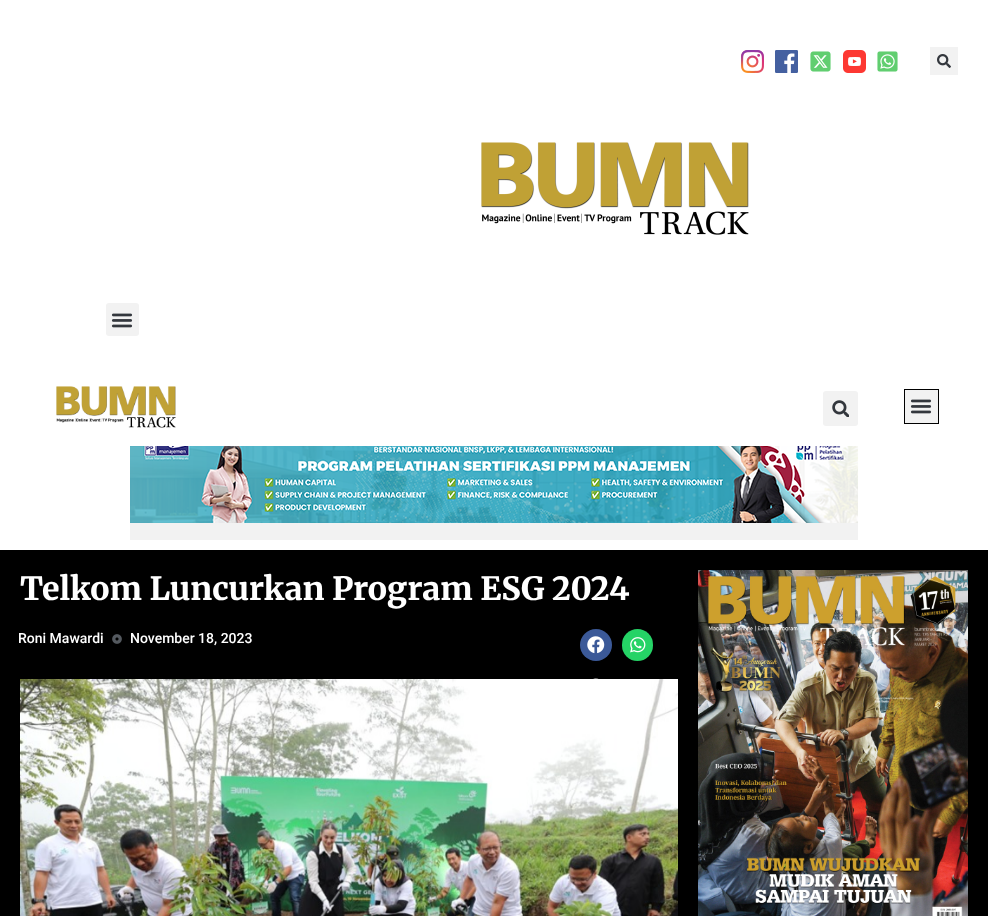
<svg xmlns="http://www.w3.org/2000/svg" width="988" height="916">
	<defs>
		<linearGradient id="g1" gradientUnits="userSpaceOnUse" x1="833" y1="570" x2="833" y2="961"><stop offset="0.6" stop-color="#707070" /><stop offset="1" stop-color="#000000" /></linearGradient>
	</defs>
	<rect width="100%" height="100%" fill="#FFFFFF" />
	<image x="741" y="50" width="23" height="23" href="assets/img1.png" />
	<image x="775" y="50" width="23" height="23" href="assets/img2.png" />
	<image x="810" y="51" width="21" height="21" href="assets/img3.png" />
	<image x="843" y="50" width="23" height="23" href="assets/img4.png" />
	<image x="877" y="51" width="21" height="21" href="assets/img5.png" />
	<rect x="930" y="47" width="28" height="28" fill="#F2F2F2" />
	<image x="937" y="54" width="14" height="14" href="assets/img6.png" />
	<image x="481" y="142" width="268" height="93" href="assets/img7.png" />
	<rect x="106" y="303" width="33" height="33" rx="3" fill="#F2F2F2" />
	<image x="111" y="313" width="22" height="15" href="assets/img8.png" />
	<image x="56" y="386" width="120" height="42" href="assets/img9.png" />
	<rect x="823" y="391" width="35" height="35" rx="3" fill="#F2F2F2" />
	<image x="832" y="400" width="17" height="17" href="assets/img10.png" />
	<rect x="904.5" y="389.5" width="34" height="34" fill="#F2F2F2" stroke="#000000" />
	<image x="910" y="399" width="22" height="15" href="assets/img8.png" />
	<rect x="130" y="523" width="728" height="17" fill="#F2F2F2" />
	<image x="130" y="446" width="728" height="77" href="assets/img11.png" />
	<rect x="0" y="550" width="988" height="366" fill="#000000" />
	<text x="20" y="600" font-family="Merriweather" font-size="32" font-weight="800" fill="#FFFFFF">Telkom Luncurkan Program ESG 2024</text>
	<text x="18" y="643" font-family="Roboto" font-size="14" font-weight="500" fill="#FFFFFF">Roni Mawardi</text>
	<image x="112" y="634" width="10" height="10" href="assets/img12.png" />
	<text x="130" y="643" font-family="Roboto" font-size="14" font-weight="500" fill="#FFFFFF">November 18, 2023</text>
	<circle cx="596" cy="645" r="16" fill="#3B5998" />
	<image x="587" y="636" width="18" height="18" href="assets/img13.png" />
	<rect x="622" y="629" width="31" height="32" rx="15.5" fill="#25D366" />
	<image x="630" y="637" width="16" height="16" href="assets/img14.png" />
	<image x="593" y="678" width="6" height="1" href="assets/img15.png" />
	<image x="20" y="679" width="658" height="237" href="assets/img16.png" />
	<rect x="698" y="570" width="270" height="5" fill="url(#g1)" />
	<image x="698" y="570" width="270" height="346" href="assets/img17.png" />
</svg>
